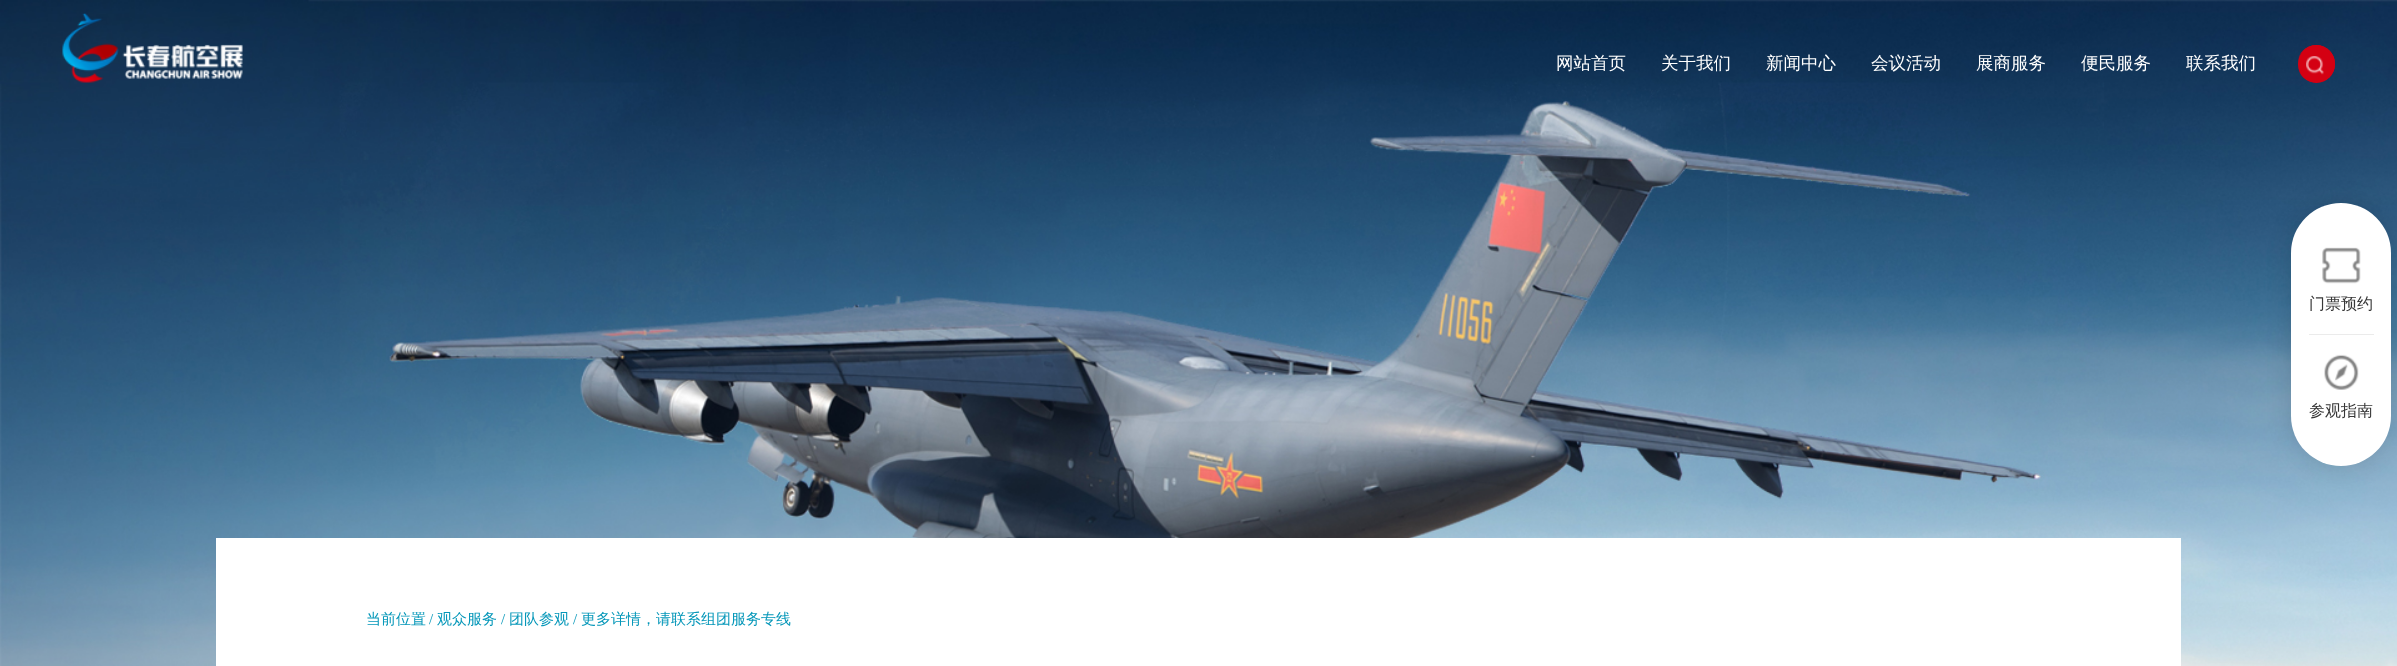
async function draw(canvas) {
	canvas.width = 2397;
	canvas.height = 666;
	const c = canvas.getContext('2d');
	c.miterLimit = 4;
	c.fontKerning = 'normal';
	async function loadImage(src) {
		const img = new Image();
		img.src = src;
		await img.decode();
		return img;
	}

	c.fillStyle = '#fff';
	c.fillRect(0, 0, 2397, 666);
	c.drawImage(await loadImage('img1.png'), 0, 0, 2397, 666);
	c.drawImage(await loadImage('img2.png'), 62, 13, 181, 70);
	c.font = '500 17.5px WenQuanYi Zen Hei';
	for (const [text, x, y] of [
		['网站首页', 1556, 69],
		['关于我们', 1661, 69],
		['新闻中心', 1766, 69],
		['会议活动', 1871, 69],
		['展商服务', 1976, 69],
		['便民服务', 2081, 69],
		['联系我们', 2186, 69],
	]) {
		c.fillText(text, x, y);
	}
	c.fillStyle = '#d40012';
	c.beginPath();
	c.roundRect(2298, 45, 37, 38, 18.5);
	c.fill();
	c.beginPath();
	c.moveTo(2316, 45);
	c.bezierCurveTo(2326.5, 45, 2335, 53.5, 2335, 64);
	c.bezierCurveTo(2335, 74, 2326.5, 82.5, 2316, 82.5);
	c.bezierCurveTo(2306, 82.5, 2297.5, 74, 2297.5, 64);
	c.bezierCurveTo(2297.5, 53.5, 2306, 45, 2316, 45);
	c.closePath();
	c.moveTo(2316, 46);
	c.bezierCurveTo(2326, 46, 2334, 54, 2334, 64);
	c.bezierCurveTo(2334, 73.5, 2326, 81, 2316, 81);
	c.bezierCurveTo(2306, 81, 2297.5, 73.5, 2297.5, 64);
	c.bezierCurveTo(2297.5, 54, 2306, 46, 2316, 46);
	c.closePath();
	c.fill('evenodd');
	c.drawImage(await loadImage('img3.png'), 2306, 56, 18, 19);
	c.fillStyle = '#fff';
	c.fillRect(216, 538, 1965, 128);
	c.font = '500 15px WenQuanYi Zen Hei';
	c.fillStyle = '#0597b9';
	c.fillText('当前位置', 366, 624);
	c.font = '15px Liberation Serif';
	c.fillText('/', 429, 624);
	c.font = '500 15px WenQuanYi Zen Hei';
	c.fillText('观众服务', 437, 624);
	c.font = '15px Liberation Serif';
	c.fillText('/', 501, 624);
	c.font = '500 15px WenQuanYi Zen Hei';
	c.fillText('团队参观', 509, 624);
	c.font = '15px Liberation Serif';
	c.fillText('/', 573, 624);
	c.font = '500 15px WenQuanYi Zen Hei';
	c.fillText('更多详情，请联系组团服务专线', 581, 624);
	c.fillStyle = '#0000001f';
	c.filter = 'blur(12.5px)';
	c.beginPath();
	c.roundRect(2291, 203, 100, 263, 50);
	c.fill();
	c.filter = 'none';
	c.fillStyle = '#fff';
	c.beginPath();
	c.roundRect(2291, 203, 100, 263, 50);
	c.fill();
	c.fillStyle = '#ebebeb';
	c.fillRect(2309, 334, 65, 1);
	c.drawImage(await loadImage('img4.png'), 2322, 247, 39, 37);
	c.font = '500 16px WenQuanYi Zen Hei';
	c.fillStyle = '#373737';
	c.fillText('门票预约', 2309, 309);
	c.drawImage(await loadImage('img5.png'), 2324, 354, 35, 36);
	c.fillText('参观指南', 2309, 416);
}

draw(document.querySelector('canvas'));
